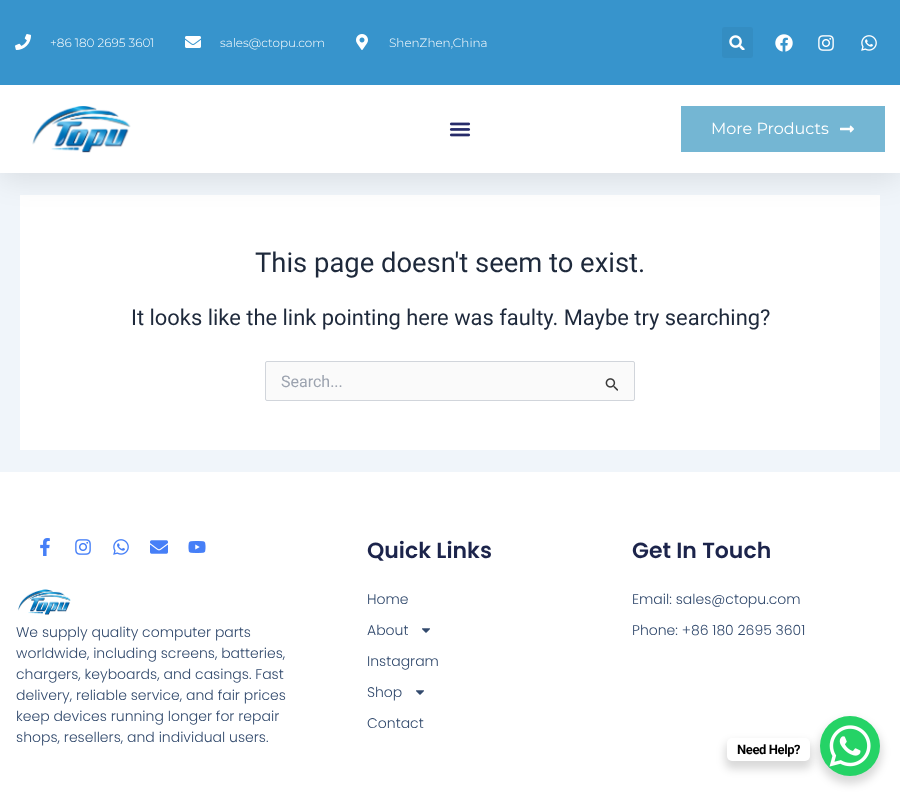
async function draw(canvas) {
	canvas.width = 900;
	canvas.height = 796;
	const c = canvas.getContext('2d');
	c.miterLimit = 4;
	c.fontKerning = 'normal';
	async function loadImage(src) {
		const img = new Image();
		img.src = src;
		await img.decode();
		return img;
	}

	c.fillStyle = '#f0f5fa';
	c.fillRect(0, 0, 900, 796);
	c.fillStyle = '#fff';
	c.fillRect(20, 195, 860, 255);
	c.fillStyle = '#0000001a';
	c.filter = 'blur(15px)';
	c.beginPath();
	c.rect(0, 5, 900, 173);
	c.fill();
	c.filter = 'none';
	c.fillStyle = '#3794cc';
	c.fillRect(0, 0, 900, 85);
	c.drawImage(await loadImage('img1.png'), 15, 34, 16, 16);
	c.font = '300 12px Montserrat';
	c.fillStyle = '#fff';
	c.fillText('+86 180 2695 3601', 50, 47);
	c.drawImage(await loadImage('img2.png'), 185, 36, 16, 12);
	c.fillText('sales@ctopu.com', 220, 47);
	c.drawImage(await loadImage('img3.png'), 356, 34, 12, 16);
	c.fillText('ShenZhen,China', 389, 47);
	c.fillStyle = '#348dc2';
	c.beginPath();
	c.roundRect(722, 27, 31, 31, 3);
	c.fill();
	c.drawImage(await loadImage('img4.png'), 729, 35, 16, 15);
	c.drawImage(await loadImage('img5.png'), 775, 34, 18, 18);
	c.drawImage(await loadImage('img6.png'), 818, 35, 16, 16);
	c.drawImage(await loadImage('img7.png'), 861, 35, 16, 16);
	c.fillStyle = '#fff';
	c.fillRect(0, 85, 900, 88);
	c.drawImage(await loadImage('img8.png'), 32, 106, 99, 47);
	c.drawImage(await loadImage('img9.png'), 449, 122, 22, 15);
	c.fillStyle = '#74b6d3';
	c.fillRect(681, 106, 204, 46);
	c.font = '16px Montserrat';
	c.fillStyle = '#fff';
	c.fillText('More Products', 711, 134);
	c.drawImage(await loadImage('img10.png'), 840, 125, 14, 8);
	c.font = '27.4px Roboto';
	c.fillStyle = '#1e293b';
	c.fillText('This page doesn\'t seem to exist.', 255, 272);
	c.font = '21.9px Roboto';
	c.fillText('It looks like the link pointing here was faulty. Maybe try searching?', 131, 325);
	c.fillStyle = '#fafafa';
	c.beginPath();
	c.roundRect(265.5, 361.5, 369, 39, 1.5);
	c.fill();
	c.strokeStyle = '#d1d5db';
	c.stroke();
	c.font = '16px Roboto';
	c.fillStyle = '#9ca3af';
	c.fillText('Search...', 281, 387);
	c.drawImage(await loadImage('img11.png'), 605, 378, 13, 13);
	c.fillStyle = '#fff';
	c.fillRect(0, 472, 900, 324);
	c.font = '600 22px Poppins';
	c.fillStyle = '#1c244b';
	c.fillText('Quick Links', 367, 558);
	c.font = '300 14px Poppins';
	c.fillStyle = '#324a6d';
	c.fillText('Home', 367, 604);
	c.fillText('About', 367, 635);
	c.drawImage(await loadImage('img12.png'), 422, 628, 8, 5);
	c.fillText('Instagram', 367, 666);
	c.fillText('Shop', 367, 697);
	c.drawImage(await loadImage('img12.png'), 416, 690, 8, 5);
	c.fillText('Contact', 367, 728);
	c.font = '600 22px Poppins';
	c.fillStyle = '#1c244b';
	c.fillText('Get In Touch', 632, 558);
	c.font = '300 14px Poppins';
	c.fillStyle = '#324a6d';
	c.fillText('Email: sales@ctopu.com', 632, 604);
	c.fillText('Phone: +86 180 2695 3601', 632, 635);
	c.drawImage(await loadImage('img13.png'), 40, 538, 10, 18);
	c.drawImage(await loadImage('img14.png'), 75, 539, 16, 16);
	c.drawImage(await loadImage('img15.png'), 113, 539, 16, 16);
	c.drawImage(await loadImage('img16.png'), 150, 540, 18, 14);
	c.drawImage(await loadImage('img17.png'), 188, 541, 18, 12);
	c.drawImage(await loadImage('img18.png'), 18, 589, 53, 26);
	for (const [text, x, y] of [
		['We supply quality computer parts', 16, 637],
		['worldwide, including screens, batteries,', 16, 658],
		['chargers, keyboards, and casings. Fast', 16, 679],
		['delivery, reliable service, and fair prices', 16, 700],
		['keep devices running longer for repair', 16, 721],
		['shops, resellers, and individual users.', 16, 742],
	]) {
		c.fillText(text, x, y);
	}
	c.fillStyle = '#00000026';
	c.filter = 'blur(4px)';
	c.beginPath();
	c.roundRect(818, 720, 64, 64, 32);
	c.fill();
	c.filter = 'none';
	c.fillStyle = '#25d366';
	c.beginPath();
	c.arc(850, 746, 30, 0, 2 * Math.PI);
	c.fill();
	c.fillStyle = '#00000026';
	c.filter = 'blur(4px)';
	c.beginPath();
	c.roundRect(725, 742, 87, 27, 7);
	c.fill();
	c.filter = 'none';
	c.fillStyle = '#fff';
	c.beginPath();
	c.roundRect(727, 738, 83, 23, 5);
	c.fill();
	c.letterSpacing = '-0.4px';
	c.font = 'bold 13px Roboto';
	c.fillStyle = '#000';
	c.fillText('Need Help?', 737, 754);
	c.drawImage(await loadImage('img19.png'), 829, 725, 42, 42);
}

draw(document.querySelector('canvas'));
